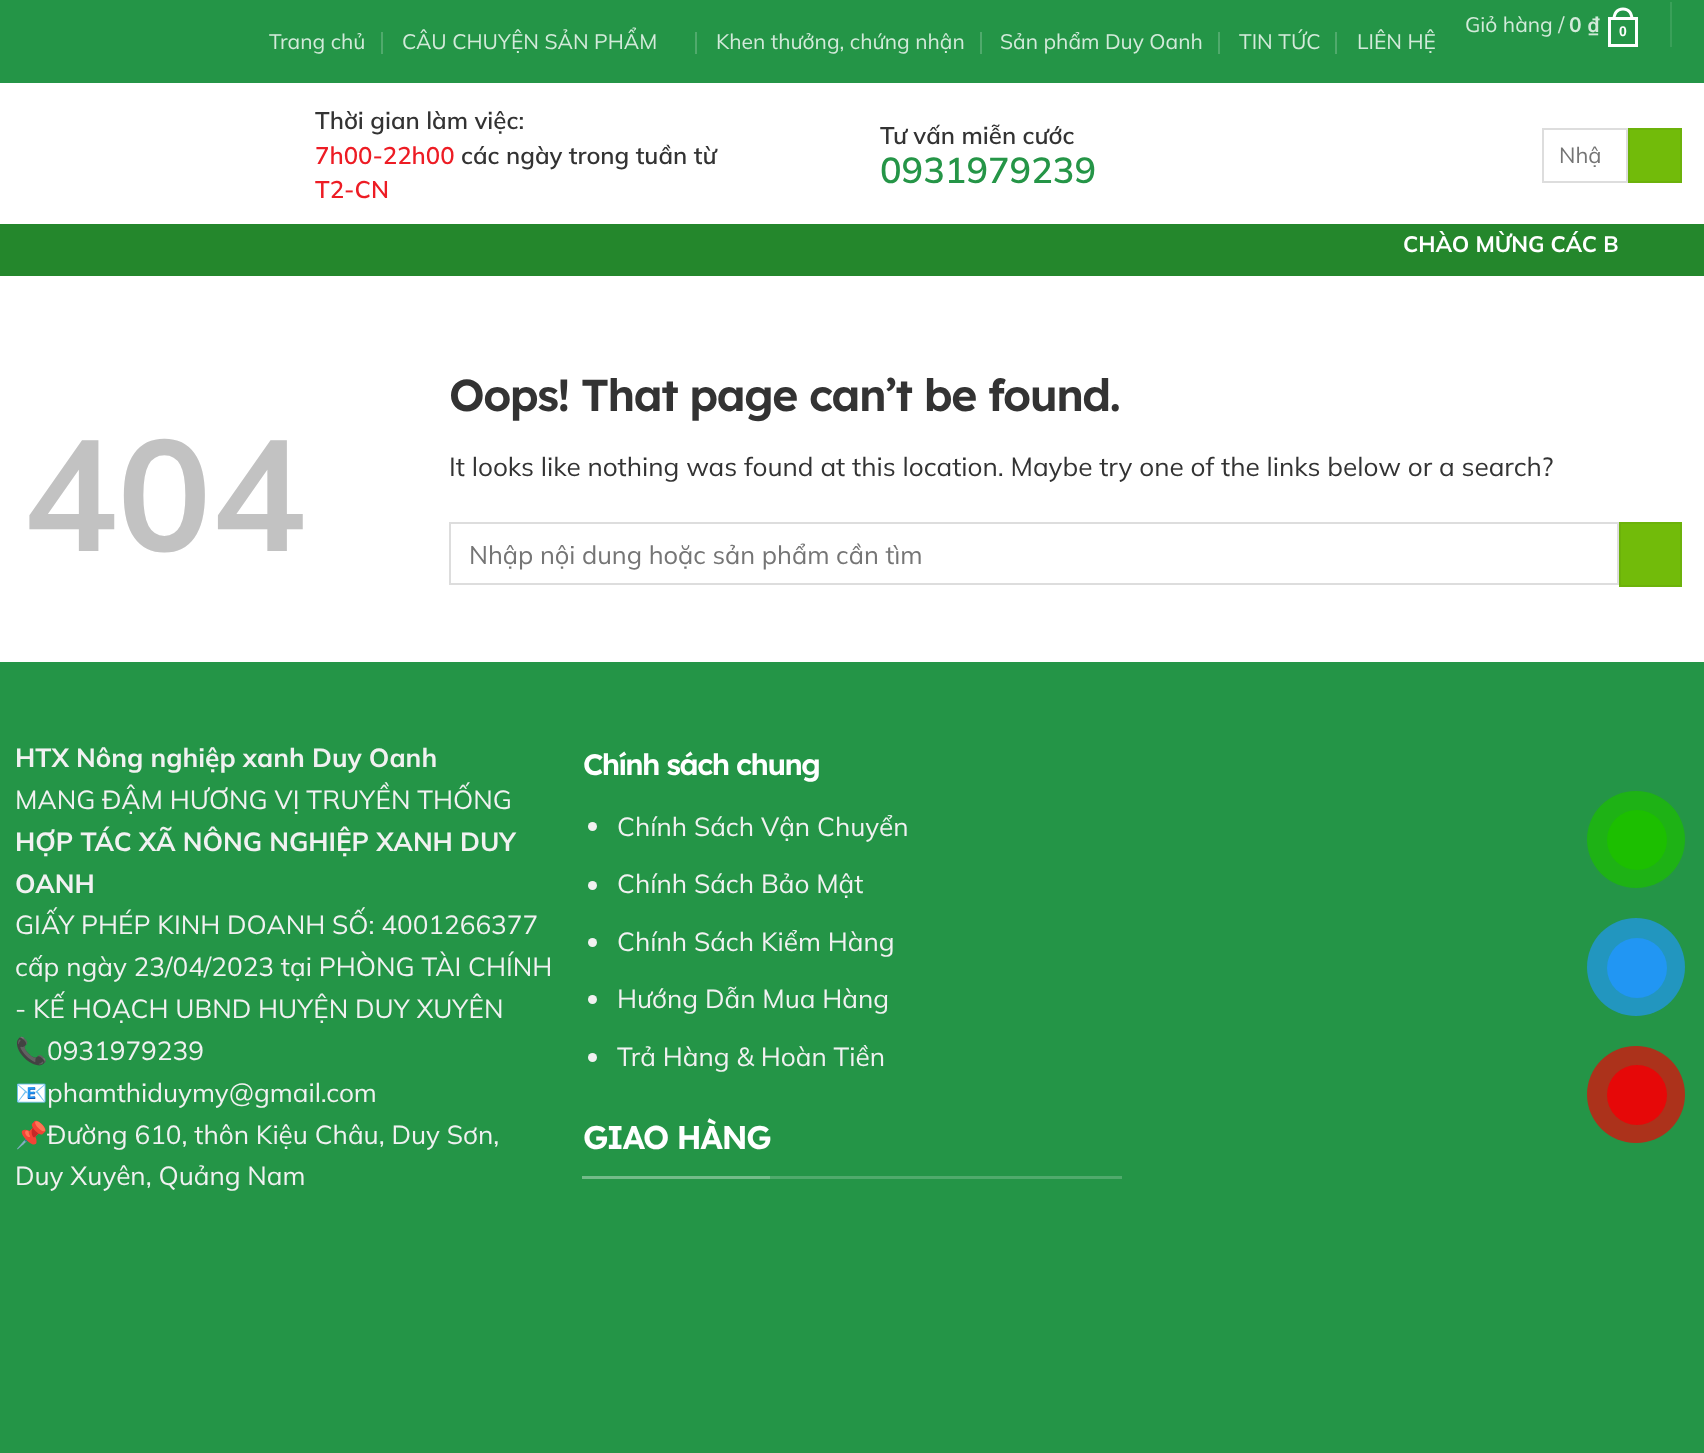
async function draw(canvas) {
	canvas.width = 1704;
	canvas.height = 1453;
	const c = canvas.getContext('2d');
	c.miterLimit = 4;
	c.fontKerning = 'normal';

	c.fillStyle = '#fff';
	c.fillRect(0, 0, 1704, 1453);
	c.fillStyle = '#249547';
	c.fillRect(0, 0, 1704, 83);
	c.font = '21px Mulish';
	c.fillStyle = '#d3eada';
	c.fillText('Trang chủ', 269, 49);
	c.fillStyle = '#50aa6c';
	c.fillRect(381, 32, 2, 22);
	c.fillStyle = '#d3eada';
	c.fillText('CÂU CHUYỆN SẢN PHẨM', 402, 49);
	c.fillStyle = '#50aa6c';
	c.fillRect(695, 32, 2, 22);
	c.fillStyle = '#d3eada';
	c.fillText('Khen thưởng, chứng nhận', 716, 49);
	c.fillStyle = '#50aa6c';
	c.fillRect(980, 32, 2, 22);
	c.fillStyle = '#d3eada';
	c.fillText('Sản phẩm Duy Oanh', 1000, 49);
	c.fillStyle = '#50aa6c';
	c.fillRect(1218, 32, 2, 22);
	c.fillStyle = '#d3eada';
	c.fillText('TIN TỨC', 1239, 49);
	c.fillStyle = '#50aa6c';
	c.fillRect(1335, 32, 2, 22);
	c.fillStyle = '#d3eada';
	c.fillText('LIÊN HỆ', 1357, 49);
	c.fillText('Giỏ hàng /', 1465, 32);
	c.font = 'bold 21px Mulish';
	c.fillText('0 ₫', 1569, 32);
	c.strokeStyle = '#fff';
	c.lineWidth = 3;
	c.strokeRect(1609.5, 18.5, 27, 27);
	c.fillStyle = '#fff';
	c.beginPath();
	c.moveTo(1623, 7.5);
	c.bezierCurveTo(1630, 7.5, 1633.5, 13, 1633.5, 19.5);
	c.lineTo(1612.5, 19.5);
	c.bezierCurveTo(1612.5, 13, 1616, 7.5, 1623, 7.5);
	c.closePath();
	c.moveTo(1623, 10.5);
	c.bezierCurveTo(1628.5, 10.5, 1630.5, 15, 1630.5, 19.5);
	c.lineTo(1615.5, 19.5);
	c.bezierCurveTo(1615.5, 15, 1617.5, 10.5, 1623, 10.5);
	c.closePath();
	c.fill('evenodd');
	c.font = 'bold 14px Liberation Sans';
	c.fillText('0', 1619, 36);
	c.fillStyle = '#3aa059';
	c.fillRect(1670, 2, 2, 45);
	c.font = '600 24px Mulish';
	c.fillStyle = '#333';
	c.fillText('Thời gian làm việc:', 315, 129);
	c.fillStyle = '#ed1c24';
	c.fillText('7h00-22h00', 315, 164);
	c.fillStyle = '#333';
	c.fillText('các ngày trong tuần từ', 461, 164);
	c.fillStyle = '#ed1c24';
	c.fillText('T2-CN', 315, 198);
	c.fillStyle = '#333';
	c.fillText('Tư vấn miễn cước', 880, 144);
	c.font = '600 36px Mulish';
	c.fillStyle = '#259547';
	c.fillText('0931979239', 880, 183);
	c.strokeStyle = '#ddd';
	c.lineWidth = 2;
	c.strokeRect(1543, 129, 84, 53);
	c.font = '22px Mulish';
	c.fillStyle = '#757575';
	c.fillText('Nhậ', 1559, 163);
	c.fillStyle = '#72bb0a';
	c.beginPath();
	c.rect(1629, 129, 52, 53);
	c.fill();
	c.strokeStyle = '#6cb20a';
	c.stroke();
	c.fillStyle = '#24872c';
	c.fillRect(0, 224, 1704, 52);
	c.font = 'bold 22.25px Mulish';
	c.fillStyle = '#fff';
	c.fillText('CHÀO MỪNG CÁC B', 1403, 252);
	c.font = 'bold 157px Mulish';
	c.fillStyle = '#c2c2c2';
	c.fillText('404', 23, 551);
	c.letterSpacing = '-1.5px';
	c.font = '600 44.5px Lexend Deca';
	c.fillStyle = '#333';
	c.fillText('Oops! That page can’t be found.', 449, 411);
	c.letterSpacing = '0px';
	c.font = '26.15px Mulish';
	c.fillText('It looks like nothing was found at this location. Maybe try one of the links below or a search?', 449, 476);
	c.strokeStyle = '#ddd';
	c.strokeRect(450, 523, 1168, 61);
	c.font = '25.4px Mulish';
	c.fillStyle = '#757575';
	c.fillText('Nhập nội dung hoặc sản phẩm cần tìm', 469, 564);
	c.fillStyle = '#72bb0a';
	c.beginPath();
	c.rect(1620, 523, 61, 63);
	c.fill();
	c.strokeStyle = '#6cb20a';
	c.stroke();
	c.fillStyle = '#249547';
	c.fillRect(0, 662, 1704, 791);
	c.font = 'bold 26.15px Mulish';
	c.fillStyle = '#f1f1f1';
	c.fillText('HTX Nông nghiệp xanh Duy Oanh', 15, 767);
	c.font = '26.15px Mulish';
	c.fillText('MANG ĐẬM HƯƠNG VỊ TRUYỀN THỐNG', 15, 809);
	c.font = 'bold 26.15px Mulish';
	c.fillText('HỢP TÁC XÃ NÔNG NGHIỆP XANH DUY', 15, 851);
	c.fillText('OANH', 15, 893);
	c.font = '26.15px Mulish';
	for (const [text, x, y] of [
		['GIẤY PHÉP KINH DOANH SỐ: 4001266377', 15, 934],
		['cấp ngày 23/04/2023 tại PHÒNG TÀI CHÍNH', 15, 976],
		['- KẾ HOẠCH UBND HUYỆN DUY XUYÊN', 15, 1018],
	]) {
		c.fillText(text, x, y);
	}
	c.font = '26.15px Noto Color Emoji';
	c.fillText('📞', 15, 1060);
	c.font = '26.15px Mulish';
	c.fillText('0931979239', 47, 1060);
	c.font = '26.15px Noto Color Emoji';
	c.fillText('📧', 15, 1102);
	c.font = '26.15px Mulish';
	c.fillText('phamthiduymy@gmail.com', 47, 1102);
	c.font = '26.15px Noto Color Emoji';
	c.fillText('📌', 15, 1144);
	c.font = '26.15px Mulish';
	c.fillText('Đường 610, thôn Kiệu Châu, Duy Sơn,', 47, 1144);
	c.fillText('Duy Xuyên, Quảng Nam', 15, 1185);
	c.letterSpacing = '-1.5px';
	c.font = '600 29.5px Lexend Deca';
	c.fillStyle = '#fff';
	c.fillText('Chính sách chung', 583, 775);
	c.fillStyle = '#f1f1f1';
	c.beginPath();
	c.arc(592.5, 826.5, 4.5, 0, 2 * Math.PI);
	c.fill();
	c.letterSpacing = '0px';
	c.font = '26.15px Mulish';
	c.fillText('Chính Sách Vận Chuyển', 617, 836);
	c.beginPath();
	c.arc(592.5, 885.5, 4.5, 0, 2 * Math.PI);
	c.fill();
	c.fillText('Chính Sách Bảo Mật', 617, 893);
	c.beginPath();
	c.arc(592.5, 942.5, 4.5, 0, 2 * Math.PI);
	c.fill();
	c.fillText('Chính Sách Kiểm Hàng', 617, 951);
	c.beginPath();
	c.arc(592.5, 999.5, 4.5, 0, 2 * Math.PI);
	c.fill();
	c.fillText('Hướng Dẫn Mua Hàng', 617, 1008);
	c.beginPath();
	c.arc(592.5, 1057.5, 4.5, 0, 2 * Math.PI);
	c.fill();
	c.fillText('Trả Hàng & Hoàn Tiền', 617, 1066);
	c.fillStyle = '#50aa6c';
	c.fillRect(770, 1176, 352, 3);
	c.fillStyle = '#73bb89';
	c.fillRect(582, 1176, 188, 3);
	c.letterSpacing = '-1.5px';
	c.font = '600 32.75px Lexend Deca';
	c.fillStyle = '#fff';
	c.fillText('GIAO HÀNG', 583, 1149);
	c.fillStyle = '#1eb215';
	c.beginPath();
	c.roundRect(1587, 791, 98, 97, 48.5);
	c.fill();
	c.fillStyle = '#1cbf00';
	c.beginPath();
	c.arc(1637, 840, 30, 0, 2 * Math.PI);
	c.fill();
	c.fillStyle = '#2296bf';
	c.beginPath();
	c.arc(1636, 967, 49, 0, 2 * Math.PI);
	c.fill();
	c.fillStyle = '#2196f3';
	c.beginPath();
	c.arc(1637, 968, 30, 0, 2 * Math.PI);
	c.fill();
	c.fillStyle = '#ac321b';
	c.beginPath();
	c.roundRect(1587, 1046, 98, 97, 48.5);
	c.fill();
	c.fillStyle = '#e60808';
	c.beginPath();
	c.arc(1637, 1095, 30, 0, 2 * Math.PI);
	c.fill();
}

draw(document.querySelector('canvas'));
